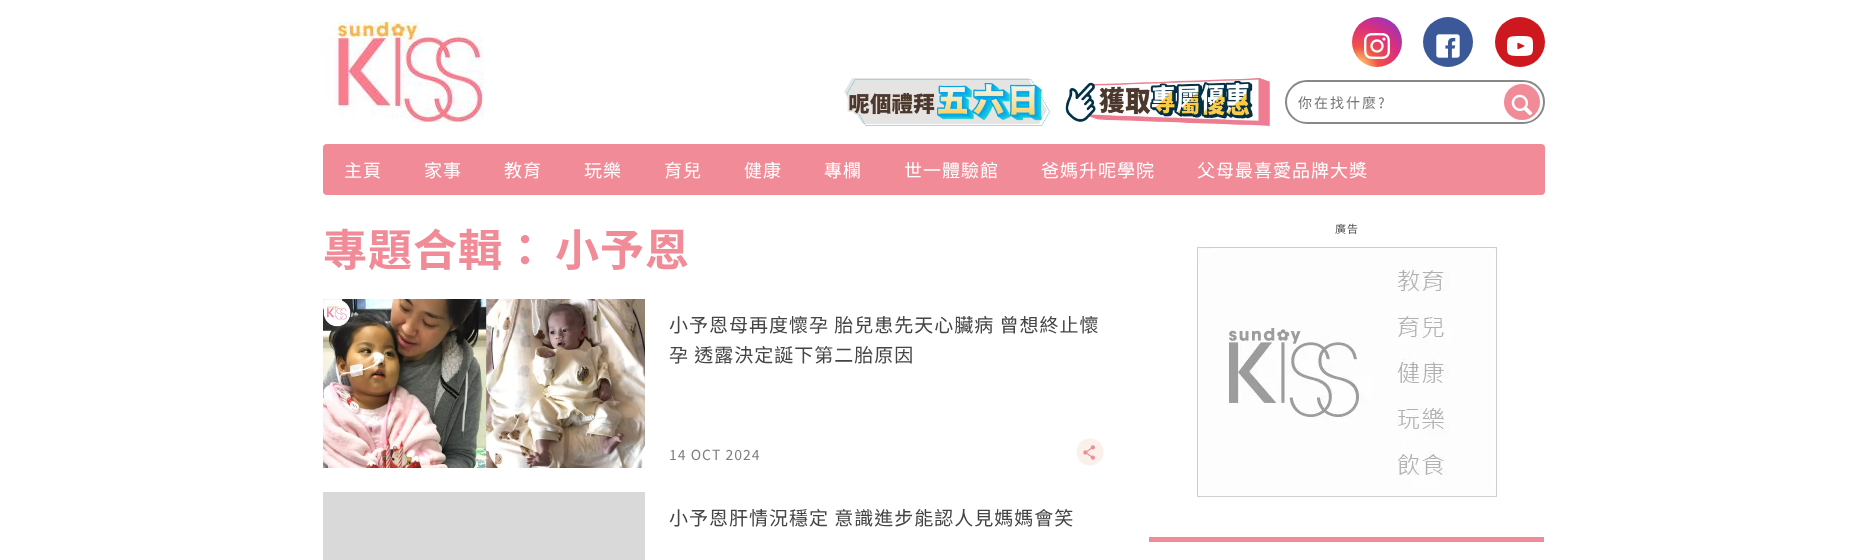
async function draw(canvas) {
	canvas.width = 1867;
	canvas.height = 560;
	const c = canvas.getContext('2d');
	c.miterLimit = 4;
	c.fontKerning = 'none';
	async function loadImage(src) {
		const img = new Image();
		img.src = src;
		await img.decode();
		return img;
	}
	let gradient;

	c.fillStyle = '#fff';
	c.fillRect(0, 0, 1867, 560);
	c.drawImage(await loadImage('img1.png'), 323, 22, 161, 100);
	gradient = c.createRadialGradient(1358, 67, 0, 1358, 67, 67);
	gradient.addColorStop(0.04, '#fed373');
	gradient.addColorStop(0.3, '#f15245');
	gradient.addColorStop(0.62, '#d92e7f');
	gradient.addColorStop(0.85, '#9b36b7');
	gradient.addColorStop(1, '#515ecf');
	c.fillStyle = gradient;
	c.beginPath();
	c.arc(1377, 42, 25, 0, 2 * Math.PI);
	c.fill();
	c.drawImage(await loadImage('img2.png'), 1364, 33, 26, 26);
	c.fillStyle = '#3b5998';
	c.beginPath();
	c.arc(1448, 42, 25, 0, 2 * Math.PI);
	c.fill();
	c.drawImage(await loadImage('img3.png'), 1436, 34, 24, 24);
	c.fillStyle = '#cc181e';
	c.beginPath();
	c.arc(1520, 42, 25, 0, 2 * Math.PI);
	c.fill();
	c.drawImage(await loadImage('img4.png'), 1507, 36, 26, 20);
	c.drawImage(await loadImage('img5.png'), 844, 78, 206, 48);
	c.drawImage(await loadImage('img6.png'), 1065, 78, 205, 48);
	c.beginPath();
	c.roundRect(1286, 81, 258, 42, 21);
	c.strokeStyle = '#888';
	c.lineWidth = 2;
	c.stroke();
	c.letterSpacing = '2px';
	c.font = '14px Noto Sans TC';
	c.fillStyle = '#757575';
	c.fillText('你在找什麼?', 1298, 108);
	c.fillStyle = '#f08b97';
	c.beginPath();
	c.arc(1522, 102, 18, 0, 2 * Math.PI);
	c.fill();
	c.drawImage(await loadImage('img7.png'), 1511, 94, 22, 22);
	c.beginPath();
	c.roundRect(323, 144, 1222, 51, 4);
	c.fill();
	c.letterSpacing = '1px';
	c.font = '18px Noto Sans TC';
	c.fillStyle = '#fff';
	for (const [text, x, y] of [
		['主頁', 344, 177],
		['家事', 424, 177],
		['教育', 504, 177],
		['玩樂', 584, 177],
		['育兒', 664, 177],
		['健康', 744, 177],
		['專欄', 824, 177],
		['世一體驗館', 904, 177],
		['爸媽升呢學院', 1041, 177],
		['父母最喜愛品牌大獎', 1197, 177],
	]) {
		c.fillText(text, x, y);
	}
	c.font = 'bold 44px Noto Sans TC';
	c.fillStyle = '#f08b97';
	c.fillText('專題合輯：', 323, 266);
	c.fillText('小予恩', 555, 266);
	c.drawImage(await loadImage('img8.png'), 323, 299, 322, 169);
	c.font = '19px Noto Sans TC';
	c.fillStyle = '#444';
	c.fillText('小予恩母再度懷孕 胎兒患先天心臟病 曾想終止懷', 669, 332);
	c.fillText('孕 透露決定誕下第二胎原因', 669, 362);
	c.font = '14px Noto Sans TC';
	c.fillStyle = '#807f7e';
	c.fillText('14 OCT 2024', 669, 460);
	c.drawImage(await loadImage('img9.png'), 1076, 438, 28, 28);
	c.fillStyle = '#d9d9d9';
	c.fillRect(323, 492, 322, 68);
	c.font = '19px Noto Sans TC';
	c.fillStyle = '#444';
	c.fillText('小予恩肝情況穩定 意識進步能認人見媽媽會笑', 669, 525);
	c.font = '11px Noto Sans TC';
	c.fillStyle = '#505050';
	c.fillText('廣告', 1335, 233);
	c.drawImage(await loadImage('img10.png'), 1197, 247, 300, 250);
	c.fillStyle = '#f08b97';
	c.fillRect(1149, 537, 395, 5);
}

draw(document.querySelector('canvas'));
